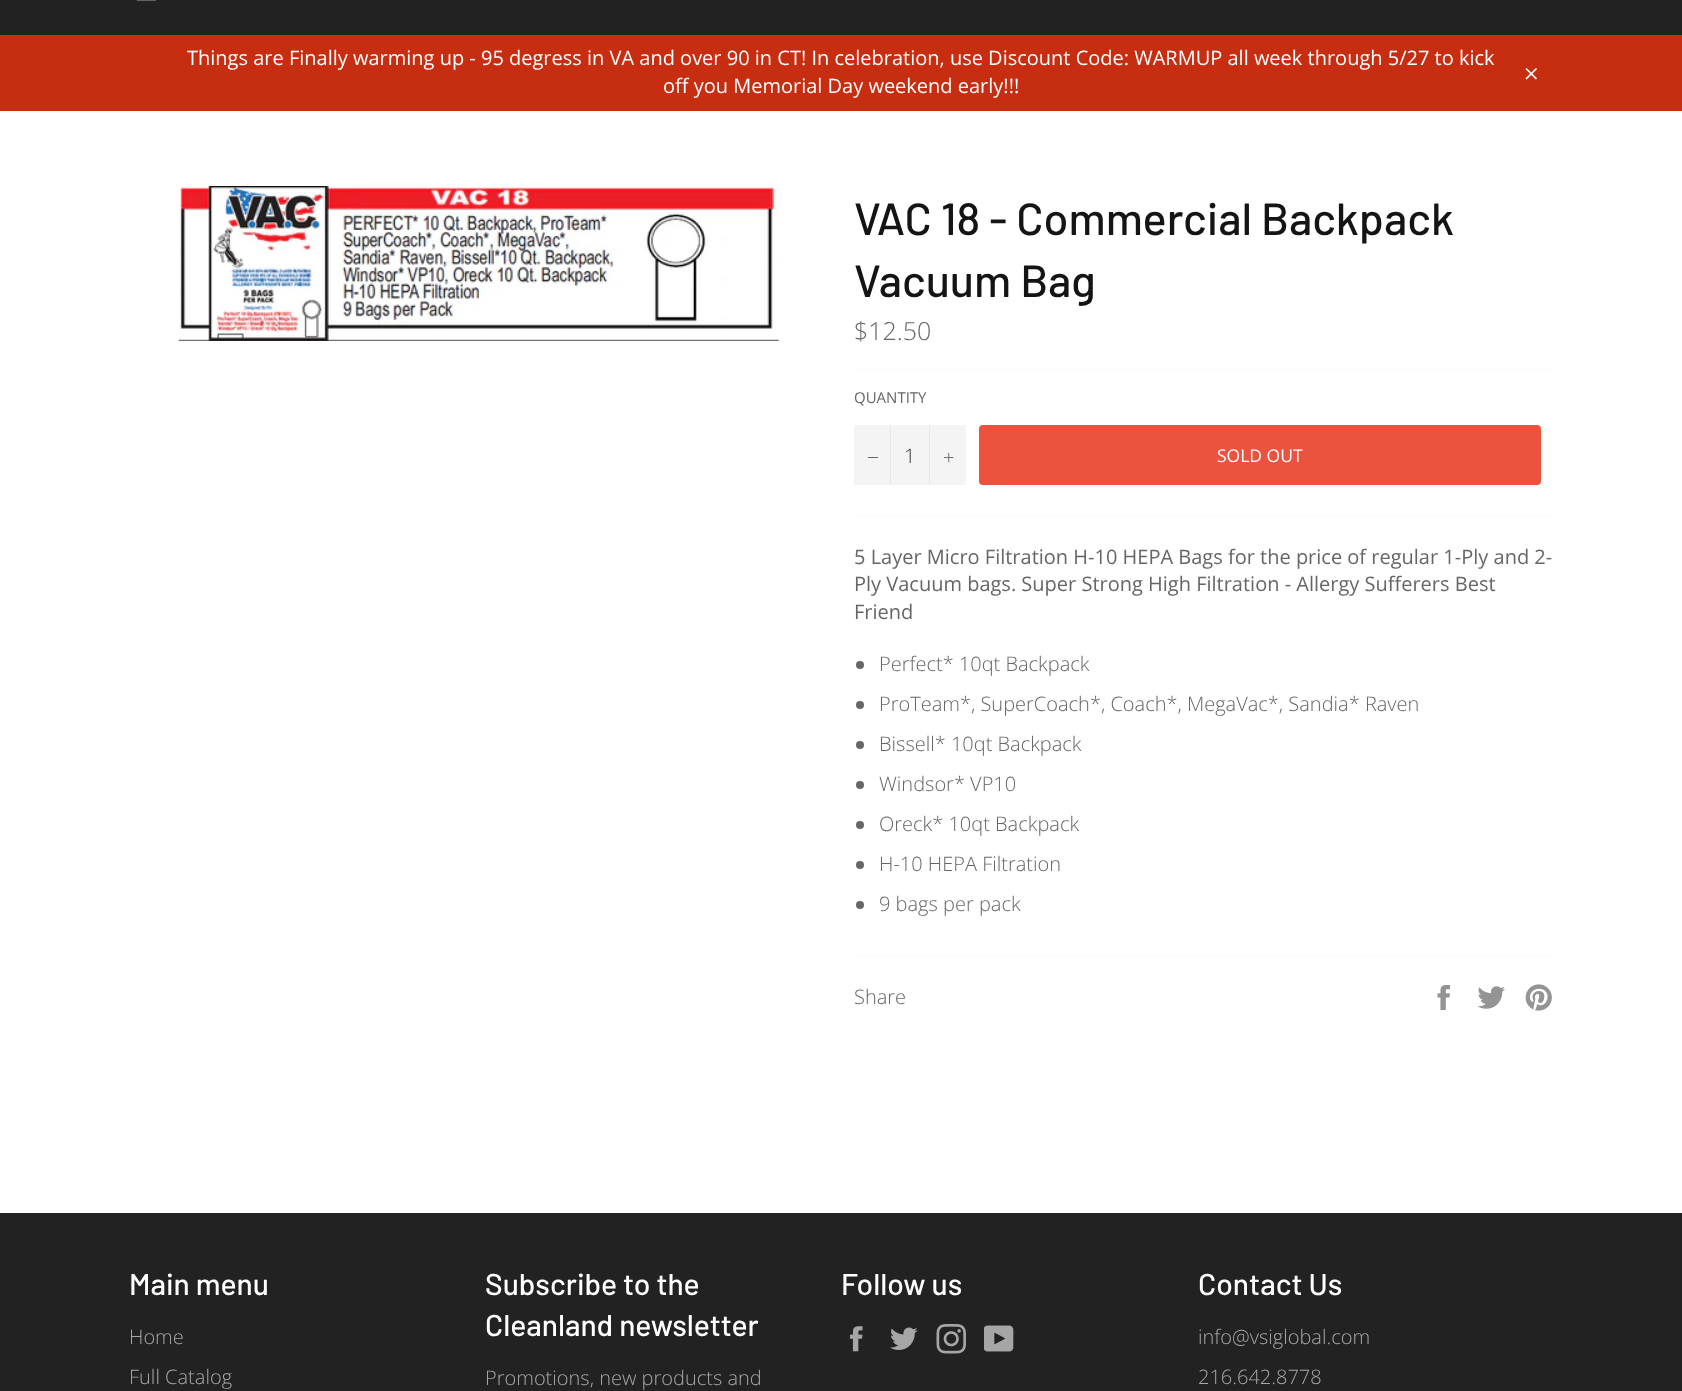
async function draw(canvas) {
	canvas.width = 1682;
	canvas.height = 1391;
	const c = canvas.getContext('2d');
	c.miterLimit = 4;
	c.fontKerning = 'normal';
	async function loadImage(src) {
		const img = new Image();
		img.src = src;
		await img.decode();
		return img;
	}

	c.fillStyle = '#c72d11';
	c.fillRect(0, 0, 1682, 1391);
	c.fillStyle = '#222';
	c.fillRect(0, 0, 1682, 35);
	c.drawImage(await loadImage('img1.png'), 136, 0, 20, 1);
	c.font = '20px Open Sans';
	c.fillStyle = '#fff';
	c.fillText('Things are Finally warming up - 95 degress in VA and over 90 in CT! In celebration, use Discount Code: WARMUP all week through 5/27 to kick', 187, 65);
	c.fillText('off you Memorial Day weekend early!!!', 663, 93);
	c.drawImage(await loadImage('img2.png'), 1525, 68, 12, 12);
	c.fillRect(0, 111, 1682, 1102);
	c.drawImage(await loadImage('img3.png'), 178, 186, 601, 155);
	c.font = '500 45px Barlow';
	c.fillStyle = '#141414';
	c.fillText('VAC 18 - Commercial Backpack', 854, 235);
	c.fillText('Vacuum Bag', 854, 297);
	c.font = '300 25px Open Sans';
	c.fillStyle = '#666';
	c.fillText('$12.50', 854, 340);
	c.fillStyle = '#fafafa';
	c.fillRect(854, 369, 700, 1);
	c.font = '15px Open Sans';
	c.fillStyle = '#666';
	c.fillText('QUANTITY', 854, 403);
	for (const [x, y, w, h, color] of [
		[854, 425, 112, 60, '#f4f4f4'],
		[890, 425, 1, 60, '#e7e7e7'],
		[868, 457, 10, 1, '#666'],
	]) {
		c.fillStyle = color;
		c.fillRect(x, y, w, h);
	}
	c.font = '300 20px Open Sans';
	c.fillStyle = '#333';
	c.fillText('1', 904, 463);
	c.fillStyle = '#e7e7e7';
	c.fillRect(929, 425, 1, 60);
	c.drawImage(await loadImage('img4.png'), 944, 453, 10, 10);
	c.fillStyle = '#ec523e';
	c.beginPath();
	c.roundRect(979, 425, 562, 60, 4);
	c.fill();
	c.font = '17.5px Open Sans';
	c.fillStyle = '#fff';
	c.fillText('SOLD OUT', 1217, 462);
	c.fillStyle = '#fafafa';
	c.fillRect(854, 516, 700, 1);
	c.font = '20px Open Sans';
	c.fillStyle = '#666';
	for (const [text, x, y] of [
		['5 Layer Micro Filtration H-10 HEPA Bags for the price of regular 1-Ply and 2-', 854, 564],
		['Ply Vacuum bags. Super Strong High Filtration - Allergy Sufferers Best', 854, 591],
		['Friend', 854, 619],
	]) {
		c.fillText(text, x, y);
	}
	c.beginPath();
	c.arc(860, 665, 4, 0, 2 * Math.PI);
	c.fill();
	c.font = '300 20px Open Sans';
	c.fillText('Perfect* 10qt Backpack', 879, 671);
	c.beginPath();
	c.arc(860, 705, 4, 0, 2 * Math.PI);
	c.fill();
	c.fillText('ProTeam*, SuperCoach*, Coach*, MegaVac*, Sandia* Raven', 879, 711);
	c.beginPath();
	c.arc(860, 745, 4, 0, 2 * Math.PI);
	c.fill();
	c.fillText('Bissell* 10qt Backpack', 879, 751);
	c.beginPath();
	c.arc(860, 785, 4, 0, 2 * Math.PI);
	c.fill();
	c.fillText('Windsor* VP10', 879, 791);
	c.beginPath();
	c.arc(860, 825, 4, 0, 2 * Math.PI);
	c.fill();
	c.fillText('Oreck* 10qt Backpack', 879, 831);
	c.beginPath();
	c.arc(860, 865, 4, 0, 2 * Math.PI);
	c.fill();
	c.fillText('H-10 HEPA Filtration', 879, 871);
	c.beginPath();
	c.arc(860, 905, 4, 0, 2 * Math.PI);
	c.fill();
	c.fillText('9 bags per pack', 879, 911);
	c.fillStyle = '#fafafa';
	c.fillRect(854, 955, 700, 1);
	c.fillStyle = '#666';
	c.fillText('Share', 854, 1004);
	c.drawImage(await loadImage('img5.png'), 1437, 985, 13, 25);
	c.drawImage(await loadImage('img6.png'), 1477, 986, 28, 23);
	c.drawImage(await loadImage('img7.png'), 1525, 984, 27, 27);
	c.fillStyle = '#222';
	c.fillRect(0, 1213, 1682, 178);
	c.font = '500 30px Barlow';
	c.fillStyle = '#fff';
	c.fillText('Main menu', 129, 1295);
	c.font = '300 20px Open Sans';
	c.fillStyle = '#a7a7a7';
	c.fillText('Home', 129, 1344);
	c.fillText('Full Catalog', 129, 1384);
	c.font = '500 30px Barlow';
	c.fillStyle = '#fff';
	c.fillText('Subscribe to the', 485, 1295);
	c.fillText('Cleanland newsletter', 485, 1336);
	c.font = '300 20px Open Sans';
	c.fillStyle = '#a7a7a7';
	c.fillText('Promotions, new products and', 485, 1385);
	c.font = '500 30px Barlow';
	c.fillStyle = '#fff';
	c.fillText('Follow us', 841, 1295);
	c.drawImage(await loadImage('img8.png'), 850, 1326, 13, 26);
	c.drawImage(await loadImage('img9.png'), 890, 1327, 28, 23);
	c.drawImage(await loadImage('img10.png'), 936, 1324, 30, 30);
	c.drawImage(await loadImage('img11.png'), 984, 1325, 30, 27);
	c.fillText('Contact Us', 1198, 1295);
	c.font = '300 20px Open Sans';
	c.fillStyle = '#a7a7a7';
	c.fillText('info@vsiglobal.com', 1198, 1344);
	c.fillText('216.642.8778', 1198, 1384);
}

draw(document.querySelector('canvas'));
